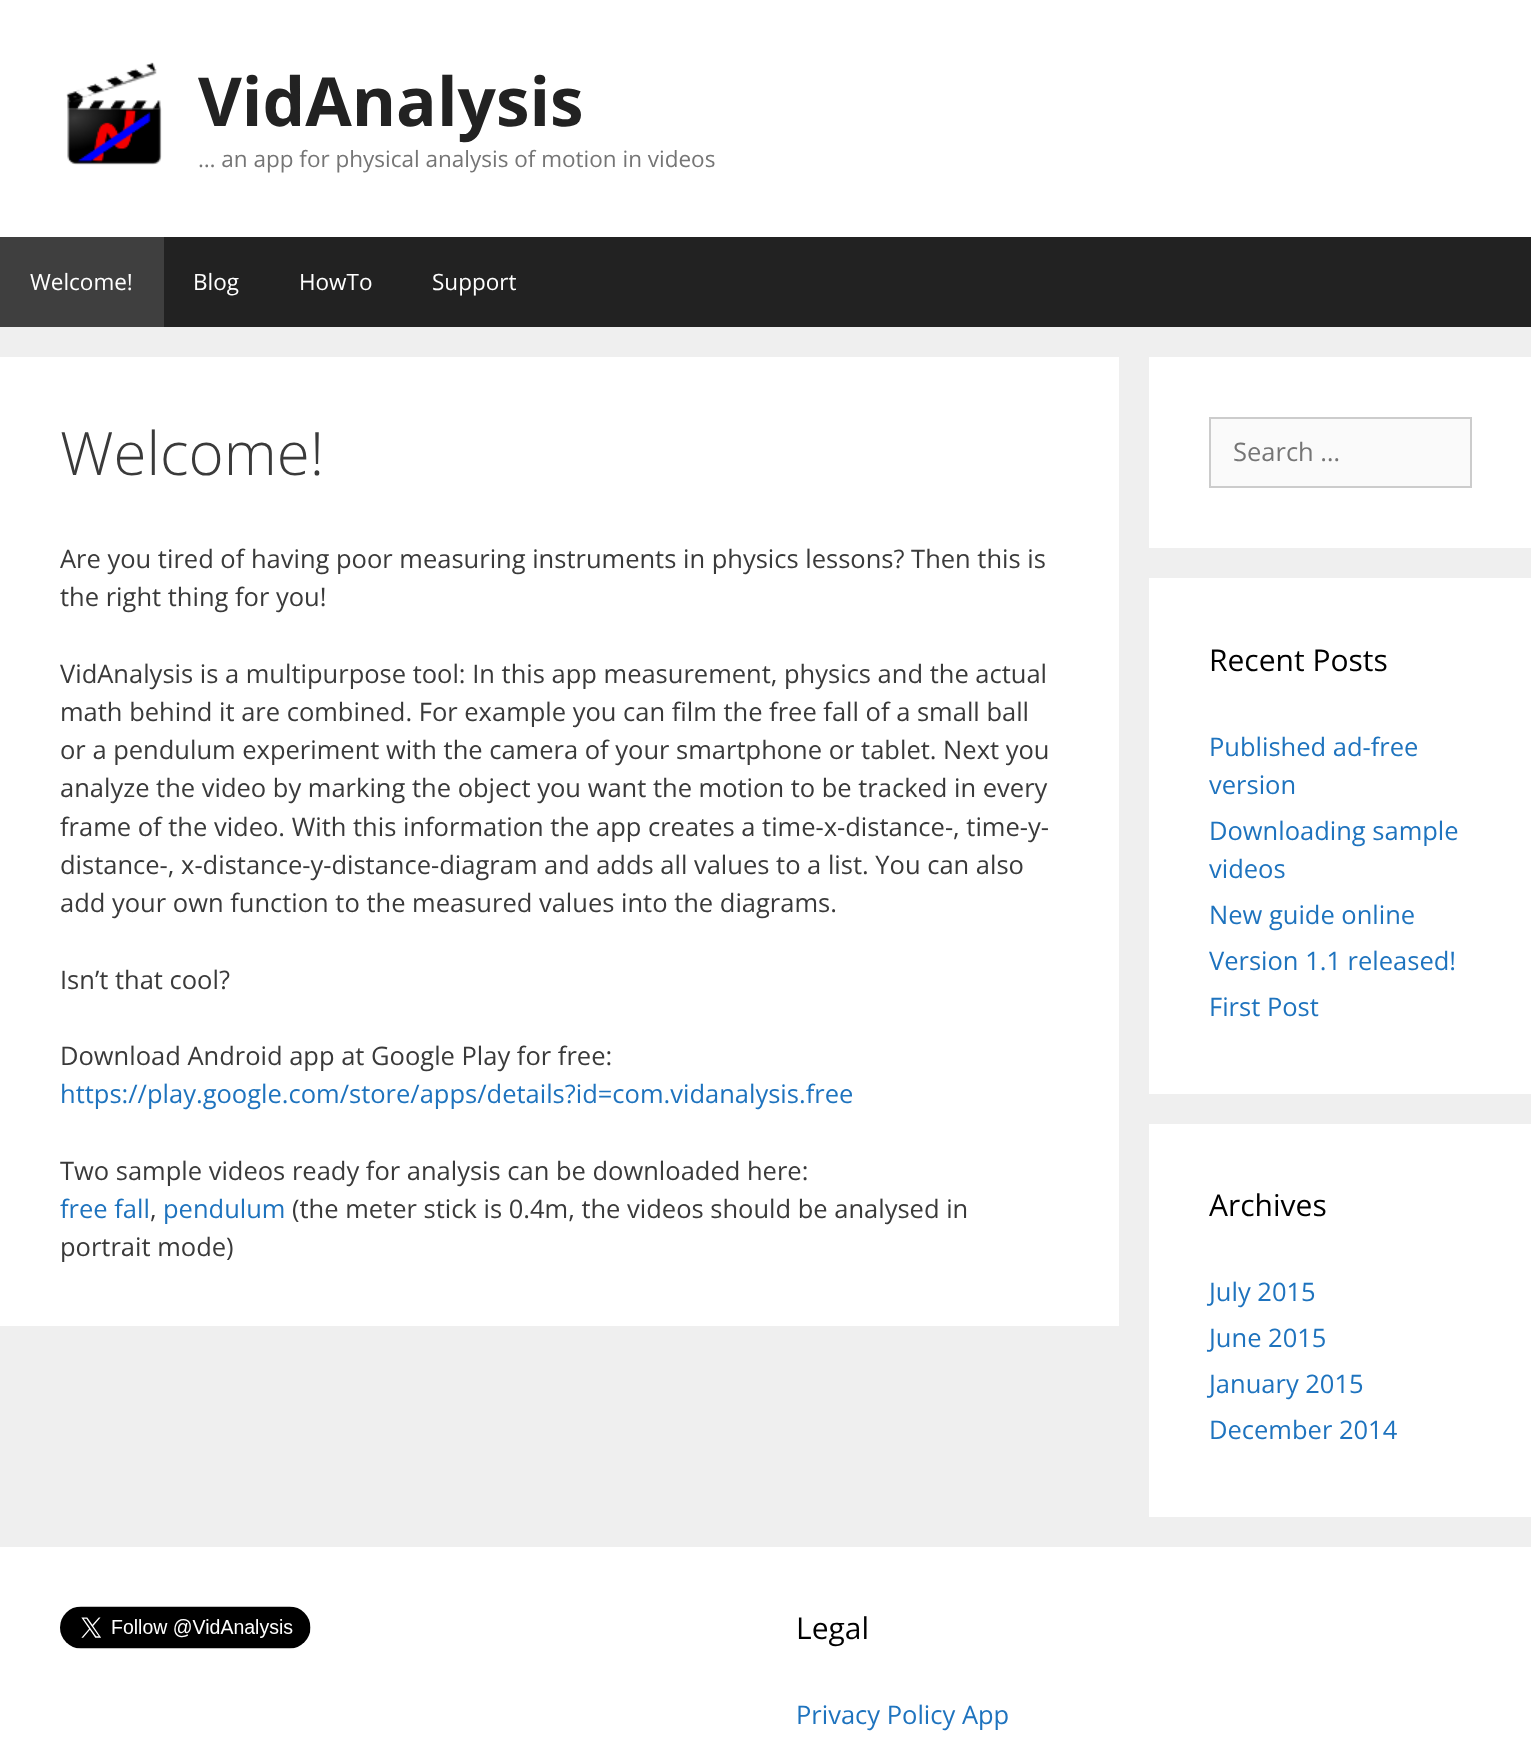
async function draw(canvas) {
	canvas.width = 1531;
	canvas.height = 1746;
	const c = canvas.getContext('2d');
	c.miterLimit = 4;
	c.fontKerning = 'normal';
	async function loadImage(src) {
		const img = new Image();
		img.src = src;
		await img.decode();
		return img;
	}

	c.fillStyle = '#efefef';
	c.fillRect(0, 0, 1531, 1746);
	c.fillStyle = '#fff';
	c.fillRect(0, 0, 1531, 237);
	c.drawImage(await loadImage('img1.png'), 66, 62, 96, 103);
	c.font = 'bold 67.5px Open Sans';
	c.fillStyle = '#222';
	c.fillText('VidAnalysis', 198, 126);
	c.font = '22.5px Open Sans';
	c.fillStyle = '#757575';
	c.fillText('… an app for physical analysis of motion in videos', 198, 167);
	c.fillStyle = '#222';
	c.fillRect(164, 237, 1367, 90);
	c.fillStyle = '#3f3f3f';
	c.fillRect(0, 237, 164, 90);
	c.fillStyle = '#fff';
	for (const [text, x, y] of [
		['Welcome!', 30, 290],
		['Blog', 193, 290],
		['HowTo', 299, 290],
		['Support', 432, 290],
	]) {
		c.fillText(text, x, y);
	}
	c.fillRect(0, 357, 1119, 969);
	c.font = '300 60px Open Sans';
	c.fillStyle = '#3a3a3a';
	c.fillText('Welcome!', 60, 475);
	c.font = '25.5px Open Sans';
	for (const [text, x, y] of [
		['Are you tired of having poor measuring instruments in physics lessons? Then this is', 60, 568],
		['the right thing for you!', 60, 606],
		['VidAnalysis is a multipurpose tool: In this app measurement, physics and the actual', 60, 683],
		['math behind it are combined. For example you can film the free fall of a small ball', 60, 721],
		['or a pendulum experiment with the camera of your smartphone or tablet. Next you', 60, 759],
		['analyze the video by marking the object you want the motion to be tracked in every', 60, 797],
		['frame of the video. With this information the app creates a time-x-distance-, time-y-', 60, 836],
		['distance-, x-distance-y-distance-diagram and adds all values to a list. You can also', 60, 874],
		['add your own function to the measured values into the diagrams.', 60, 912],
		['Isn’t that cool?', 60, 989],
		['Download Android app at Google Play for free:', 60, 1065],
	]) {
		c.fillText(text, x, y);
	}
	c.fillStyle = '#1e73be';
	c.fillText('https://play.google.com/store/apps/details?id=com.vidanalysis.free', 60, 1103);
	c.fillStyle = '#3a3a3a';
	c.fillText('Two sample videos ready for analysis can be downloaded here:', 60, 1180);
	c.fillStyle = '#1e73be';
	c.fillText('free fall', 60, 1218);
	c.fillStyle = '#3a3a3a';
	c.fillText(',', 150, 1218);
	c.fillStyle = '#1e73be';
	c.fillText('pendulum', 163, 1218);
	c.fillStyle = '#3a3a3a';
	c.fillText('(the meter stick is 0.4m, the videos should be analysed in', 292, 1218);
	c.fillText('portrait mode)', 60, 1256);
	c.fillStyle = '#fff';
	c.fillRect(1149, 357, 382, 191);
	c.fillStyle = '#fafafa';
	c.beginPath();
	c.rect(1210, 418, 261, 69);
	c.fill();
	c.strokeStyle = '#ccc';
	c.lineWidth = 2;
	c.stroke();
	c.fillStyle = '#757575';
	c.fillText('Search …', 1233, 461);
	c.fillStyle = '#fff';
	c.fillRect(1149, 578, 382, 516);
	c.font = '30px Open Sans';
	c.fillStyle = '#000';
	c.fillText('Recent Posts', 1209, 671);
	c.font = '25.5px Open Sans';
	c.fillStyle = '#1e73be';
	for (const [text, x, y] of [
		['Published ad-free', 1209, 756],
		['version', 1209, 794],
		['Downloading sample', 1209, 840],
		['videos', 1209, 878],
		['New guide online', 1209, 924],
		['Version 1.1 released!', 1209, 970],
		['First Post', 1209, 1016],
	]) {
		c.fillText(text, x, y);
	}
	c.fillStyle = '#fff';
	c.fillRect(1149, 1124, 382, 393);
	c.font = '30px Open Sans';
	c.fillStyle = '#000';
	c.fillText('Archives', 1209, 1216);
	c.font = '25.5px Open Sans';
	c.fillStyle = '#1e73be';
	for (const [text, x, y] of [
		['July 2015', 1209, 1301],
		['June 2015', 1209, 1347],
		['January 2015', 1209, 1393],
		['December 2014', 1209, 1439],
	]) {
		c.fillText(text, x, y);
	}
	c.fillStyle = '#fff';
	c.fillRect(0, 1547, 1531, 199);
	c.drawImage(await loadImage('img2.png'), 60, 1606, 251, 43);
	c.font = '30px Open Sans';
	c.fillStyle = '#000';
	c.fillText('Legal', 796, 1639);
	c.font = '25.5px Open Sans';
	c.fillStyle = '#1e73be';
	c.fillText('Privacy Policy App', 796, 1724);
}

draw(document.querySelector('canvas'));
